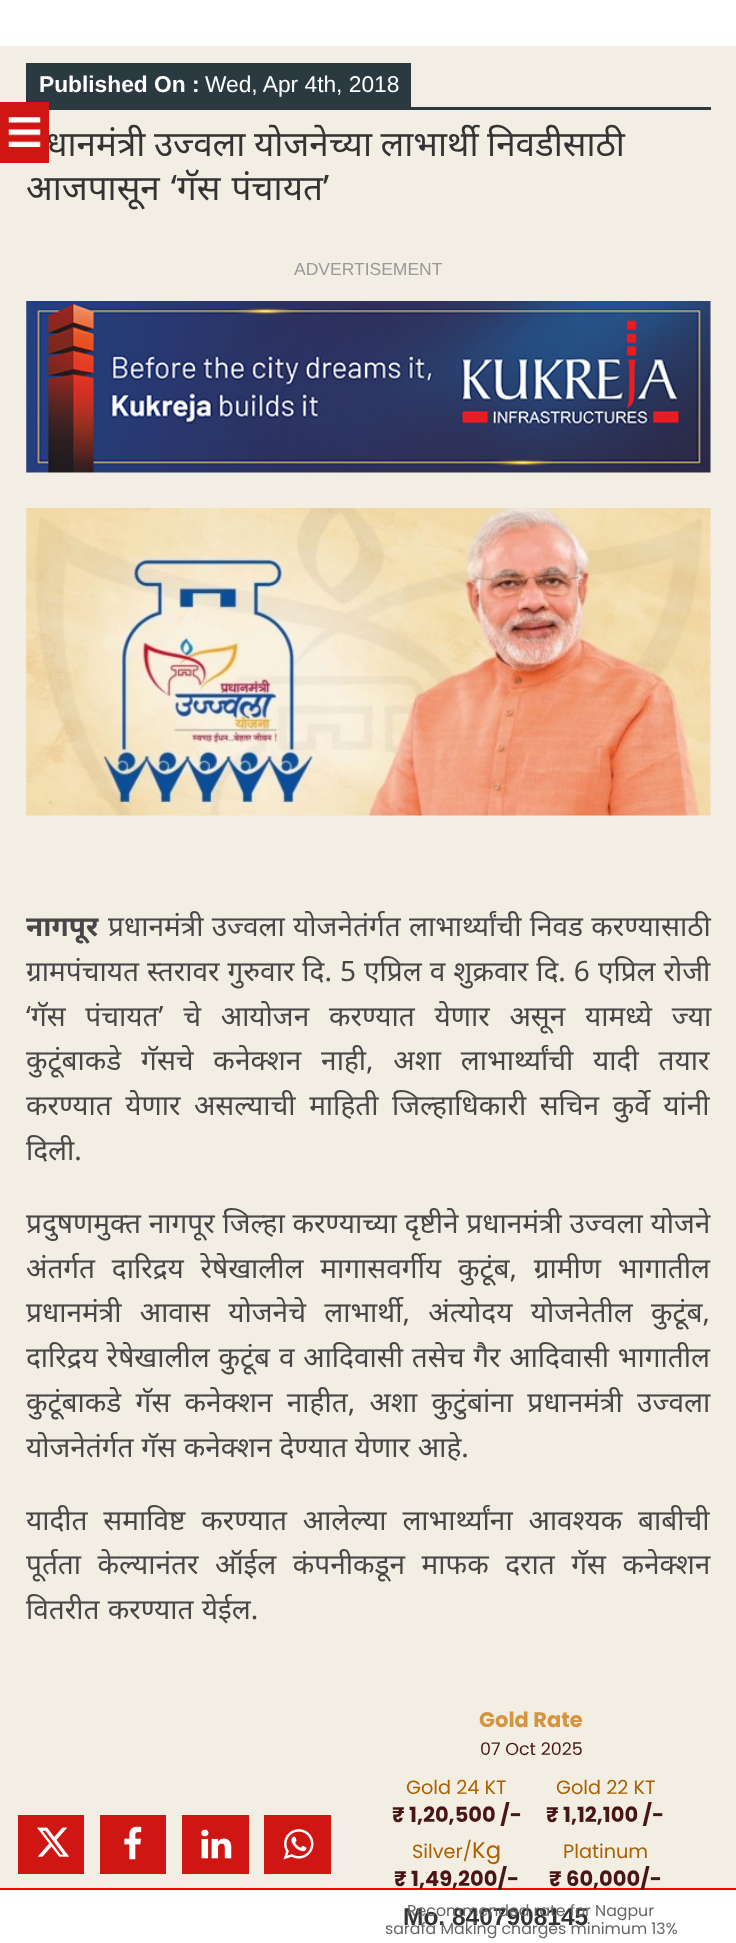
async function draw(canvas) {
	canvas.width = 736;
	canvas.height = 1943;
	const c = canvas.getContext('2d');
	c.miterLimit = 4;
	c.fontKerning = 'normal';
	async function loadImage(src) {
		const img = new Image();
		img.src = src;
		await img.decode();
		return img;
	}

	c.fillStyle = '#f2eee3';
	c.fillRect(0, 0, 736, 1943);
	for (const [x, y, w, h, color] of [
		[0, 0, 736, 46, '#fff'],
		[49, 107, 662, 3, '#2b3a41'],
		[26, 63, 385, 44, '#2b3a41'],
	]) {
		c.fillStyle = color;
		c.fillRect(x, y, w, h);
	}
	c.font = 'bold 22.75px Liberation Sans';
	c.fillStyle = '#fff';
	c.fillText('Published On :', 39, 92);
	c.font = '22.75px Liberation Sans';
	c.fillText('Wed, Apr 4th, 2018', 205, 92);
	c.wordSpacing = '-0.5px';
	c.font = '35px Noto Sans';
	c.fillStyle = '#333';
	c.fillText('धानमंत्री उज्वला योजनेच्या लाभार्थी निवडीसाठी', 46, 156);
	c.wordSpacing = '2px';
	c.fillText('आजपासून ‘गॅस पंचायत’', 26, 200);
	c.wordSpacing = '0px';
	c.font = '17.5px Liberation Sans';
	c.fillStyle = '#999';
	c.fillText('ADVERTISEMENT', 294, 275);
	c.drawImage(await loadImage('img1.png'), 26, 301, 685, 172);
	c.drawImage(await loadImage('img2.png'), 26, 508, 685, 308);
	c.font = 'bold 28px Noto Sans';
	c.fillStyle = '#474747';
	c.fillText('नागपूर', 26, 936);
	c.wordSpacing = '1px';
	c.font = '28px Noto Sans';
	c.fillText('प्रधानमंत्री उज्वला योजनेतंर्गत लाभार्थ्यांची निवड करण्यासाठी', 108, 936);
	c.wordSpacing = '0.75px';
	c.fillText('ग्रामपंचायत स्तरावर गुरुवार दि. 5 एप्रिल व शुक्रवार दि. 6 एप्रिल रोजी', 26, 981);
	c.wordSpacing = '12.5px';
	c.fillText('‘गॅस पंचायत’ चे आयोजन करण्यात येणार असून यामध्ये ज्या', 26, 1026);
	c.fillText('कुटूंबाकडे गॅसचे कनेक्शन नाही, अशा लाभार्थ्यांची यादी तयार', 26, 1070);
	c.wordSpacing = '6.25px';
	c.fillText('करण्यात येणार असल्याची माहिती जिल्हाधिकारी सचिन कुर्वे यांनी', 26, 1115);
	c.wordSpacing = '0px';
	c.fillText('दिली.', 26, 1160);
	c.wordSpacing = '0.5px';
	c.fillText('प्रदुषणमुक्त नागपूर जिल्हा करण्याच्या दृष्टीने प्रधानमंत्री उज्वला योजने', 26, 1233);
	c.wordSpacing = '9.5px';
	c.fillText('अंतर्गत दारिद्रय रेषेखालील मागासवर्गीय कुटूंब, ग्रामीण भागातील', 26, 1278);
	c.wordSpacing = '11px';
	c.fillText('प्रधानमंत्री आवास योजनेचे लाभार्थी, अंत्योदय योजनेतील कुटूंब,', 26, 1322);
	c.wordSpacing = '1.5px';
	c.fillText('दारिद्रय रेषेखालील कुटूंब व आदिवासी तसेच गैर आदिवासी भागातील', 26, 1367);
	c.wordSpacing = '7px';
	c.fillText('कुटूंबाकडे गॅस कनेक्शन नाहीत, अशा कुटुंबांना प्रधानमंत्री उज्वला', 26, 1412);
	c.wordSpacing = '0.5px';
	c.fillText('योजनेतंर्गत गॅस कनेक्शन देण्यात येणार आहे.', 26, 1457);
	c.wordSpacing = '8.5px';
	c.fillText('यादीत समाविष्ट करण्यात आलेल्या लाभार्थ्यांना आवश्यक बाबीची', 26, 1530);
	c.wordSpacing = '9.25px';
	c.fillText('पूर्तता केल्यानंतर ऑईल कंपनीकडून माफक दरात गॅस कनेक्शन', 26, 1574);
	c.wordSpacing = '1px';
	c.fillText('वितरीत करण्यात येईल.', 26, 1619);
	c.wordSpacing = '0px';
	c.font = 'bold 21px Poppins';
	c.fillStyle = '#d5943f';
	c.fillText('Gold Rate', 479, 1727);
	c.font = '17.5px Poppins';
	c.fillStyle = '#4a1515';
	c.fillText('07 Oct 2025', 480, 1755);
	c.font = '19.25px Poppins';
	c.fillStyle = '#ab6100';
	c.fillText('Gold 24 KT', 406, 1794);
	c.font = 'bold 21px Poppins';
	c.fillStyle = '#4a1515';
	c.fillText('₹ 1,20,500 /-', 392, 1822);
	c.font = '19.25px Poppins';
	c.fillStyle = '#ab6100';
	c.fillText('Gold 22 KT', 556, 1794);
	c.font = 'bold 21px Poppins';
	c.fillStyle = '#4a1515';
	c.fillText('₹ 1,12,100 /-', 546, 1822);
	c.font = '19.25px Poppins';
	c.fillStyle = '#ab6100';
	c.fillText('Silver/', 412, 1858);
	c.font = '22.75px Poppins';
	c.fillText('Kg', 472, 1858);
	c.fillStyle = '#f00';
	c.fillRect(0, 1888, 736, 2);
	c.font = 'bold 21px Poppins';
	c.fillStyle = '#4a1515';
	c.fillText('₹ 1,49,200/-', 394, 1886);
	c.font = '19.25px Poppins';
	c.fillStyle = '#ab6100';
	c.fillText('Platinum', 563, 1858);
	c.font = 'bold 21px Poppins';
	c.fillStyle = '#4a1515';
	c.fillText('₹ 60,000/-', 549, 1886);
	c.fillStyle = '#fff';
	c.fillRect(0, 1890, 736, 53);
	c.font = 'bold 24.5px Liberation Sans';
	c.fillStyle = '#333';
	c.fillText('Mo. 8407908145', 403, 1925);
	c.font = '15.75px Poppins';
	c.fillStyle = '#666';
	c.fillText('Recommended rate for Nagpur', 407, 1916);
	c.fillText('sarafa Making charges minimum 13%', 385, 1934);
	c.fillStyle = '#cf1613';
	c.fillRect(18, 1815, 66, 59);
	c.drawImage(await loadImage('img3.png'), 37, 1827, 32, 30);
	c.fillRect(100, 1815, 66, 59);
	c.drawImage(await loadImage('img4.png'), 124, 1826, 18, 34);
	c.fillRect(182, 1815, 67, 59);
	c.drawImage(await loadImage('img5.png'), 201, 1829, 31, 30);
	c.fillRect(264, 1815, 67, 59);
	c.drawImage(await loadImage('img6.png'), 283, 1829, 31, 31);
	c.fillRect(0, 102, 49, 61);
	c.drawImage(await loadImage('img7.png'), 8, 117, 33, 30);
}

draw(document.querySelector('canvas'));
